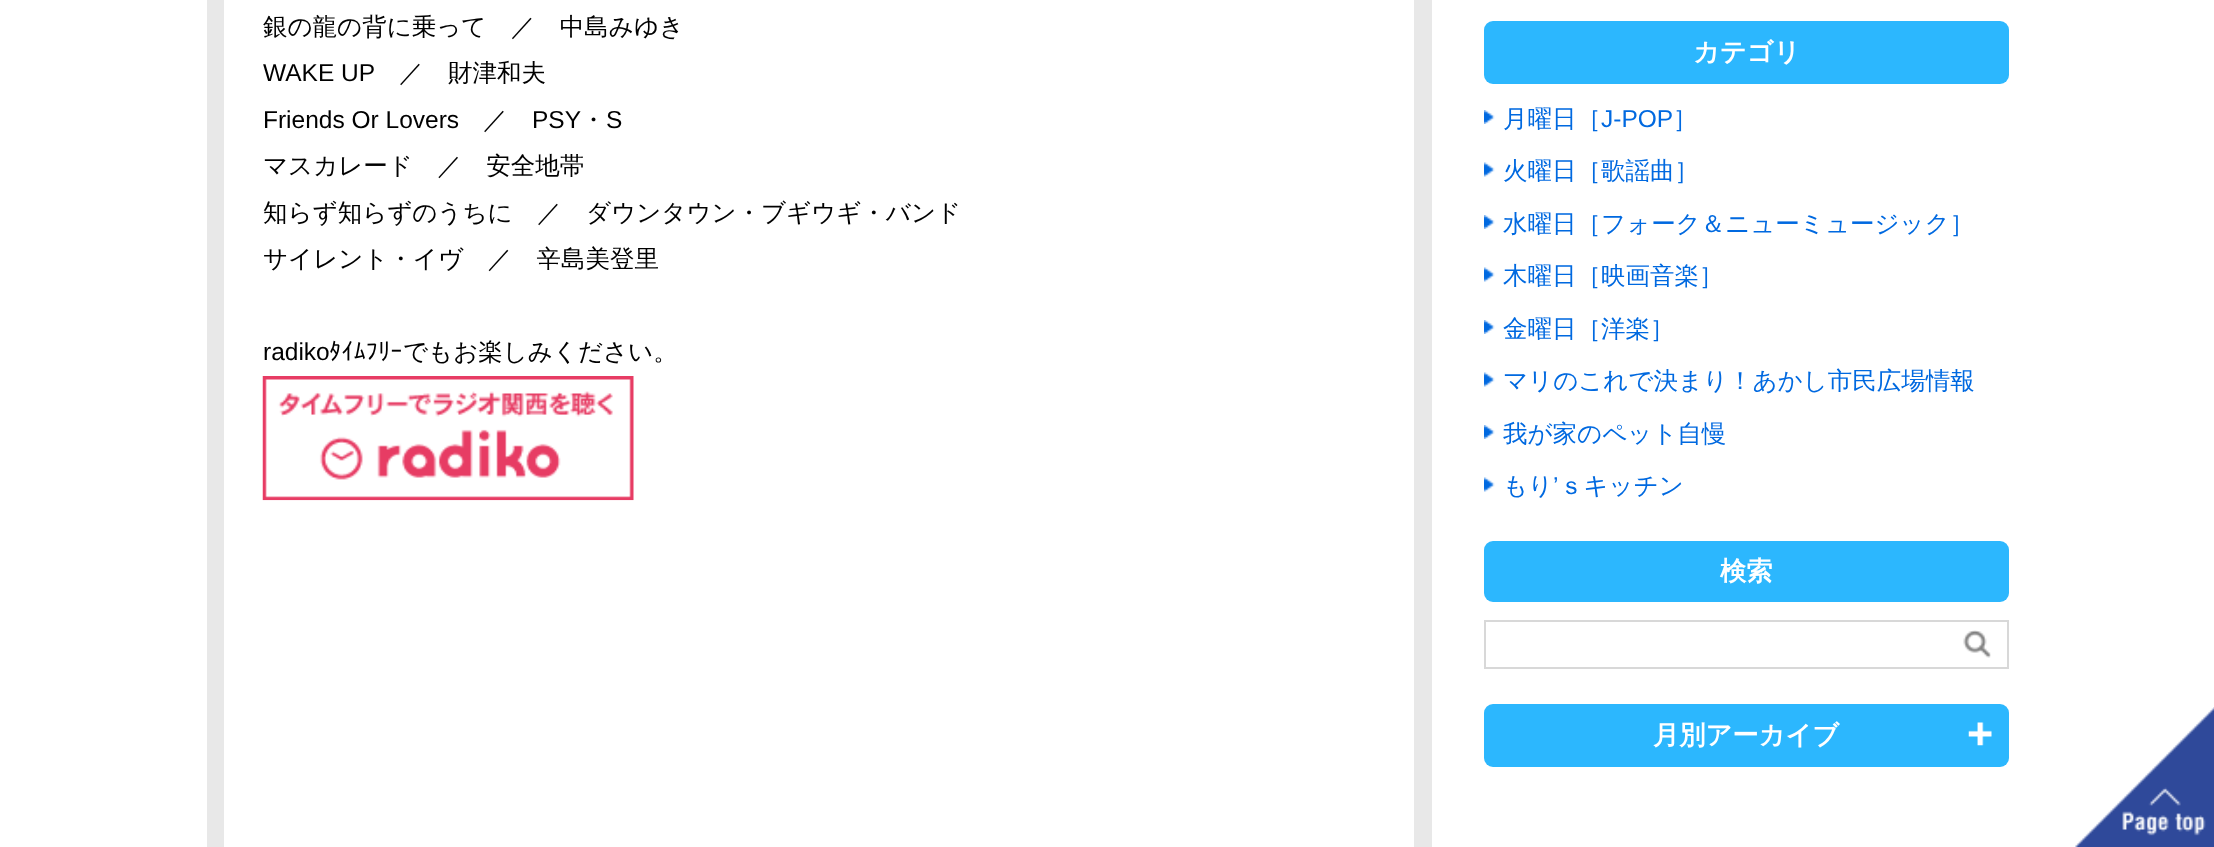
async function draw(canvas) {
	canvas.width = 2214;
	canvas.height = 847;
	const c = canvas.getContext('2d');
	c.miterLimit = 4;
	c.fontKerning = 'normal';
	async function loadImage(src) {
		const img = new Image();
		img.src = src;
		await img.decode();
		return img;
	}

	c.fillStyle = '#fff';
	c.fillRect(0, 0, 2214, 847);
	c.fillStyle = '#e8e8e8';
	c.fillRect(207, 0, 1225, 847);
	c.fillStyle = '#fff';
	c.fillRect(224, 0, 1190, 847);
	c.font = '500 24.5px WenQuanYi Zen Hei';
	c.fillStyle = '#000';
	c.fillText('銀の龍の背に乗って　／　中島みゆき', 263, 35);
	c.font = '24.5px Liberation Sans';
	c.fillText('WAKE UP', 263, 81);
	c.font = '500 24.5px WenQuanYi Zen Hei';
	c.fillText('／　財津和夫', 399, 81);
	c.font = '24.5px Liberation Sans';
	c.fillText('Friends Or Lovers', 263, 128);
	c.font = '500 24.5px WenQuanYi Zen Hei';
	c.fillText('／', 483, 128);
	c.font = '24.5px Liberation Sans';
	c.fillText('PSY', 532, 128);
	c.font = '500 24.5px WenQuanYi Zen Hei';
	c.fillText('・', 581, 128);
	c.font = '24.5px Liberation Sans';
	c.fillText('S', 606, 128);
	c.font = '500 24.5px WenQuanYi Zen Hei';
	for (const [text, x, y] of [
		['マスカレード　／　安全地帯', 263, 174],
		['知らず知らずのうちに　／　ダウンタウン・ブギウギ・バンド', 263, 221],
		['サイレント・イヴ　／　辛島美登里', 263, 267],
	]) {
		c.fillText(text, x, y);
	}
	c.font = '24.5px Liberation Sans';
	c.fillText('radiko', 263, 360);
	c.font = '24.5px IPAPGothic';
	c.fillText('ﾀｲﾑﾌﾘｰ', 329, 360);
	c.font = '500 24.5px WenQuanYi Zen Hei';
	c.fillText('でもお楽しみください。', 403, 360);
	c.drawImage(await loadImage('img1.png'), 262, 376, 372, 125);
	c.fillStyle = '#2cb7fe';
	c.beginPath();
	c.roundRect(1484, 21, 525, 63, 9);
	c.fill();
	c.font = 'bold 26.25px WenQuanYi Zen Hei';
	c.fillStyle = '#fff';
	c.fillText('カテゴリ', 1693, 61);
	c.drawImage(await loadImage('img2.png'), 1484, 110, 11, 14);
	c.font = '500 24.5px WenQuanYi Zen Hei';
	c.fillStyle = '#0069e0';
	c.fillText('月曜日［', 1503, 127);
	c.font = '24.5px Liberation Sans';
	c.fillText('J-POP', 1601, 127);
	c.font = '500 24.5px WenQuanYi Zen Hei';
	c.fillText('］', 1673, 127);
	c.drawImage(await loadImage('img3.png'), 1484, 162, 11, 15);
	c.fillText('火曜日［歌謡曲］', 1503, 179);
	c.drawImage(await loadImage('img2.png'), 1484, 215, 11, 14);
	c.fillText('水曜日［フォーク＆ニューミュージック］', 1503, 232);
	c.drawImage(await loadImage('img3.png'), 1484, 267, 11, 15);
	c.fillText('木曜日［映画音楽］', 1503, 284);
	c.drawImage(await loadImage('img2.png'), 1484, 320, 11, 14);
	c.fillText('金曜日［洋楽］', 1503, 337);
	c.drawImage(await loadImage('img3.png'), 1484, 372, 11, 15);
	c.fillText('マリのこれで決まり！あかし市民広場情報', 1503, 389);
	c.drawImage(await loadImage('img2.png'), 1484, 425, 11, 14);
	c.fillText('我が家のペット自慢', 1503, 442);
	c.drawImage(await loadImage('img3.png'), 1484, 477, 11, 15);
	c.fillText('もり', 1503, 494);
	c.font = '24.5px Liberation Sans';
	c.fillText('’', 1553, 494);
	c.font = '500 24.5px WenQuanYi Zen Hei';
	c.fillText('ｓキッチン', 1559, 494);
	c.fillStyle = '#2cb7fe';
	c.beginPath();
	c.roundRect(1484, 541, 525, 61, 9);
	c.fill();
	c.font = 'bold 26.25px WenQuanYi Zen Hei';
	c.fillStyle = '#fff';
	c.fillText('検索', 1720, 580);
	c.strokeStyle = '#d8d8d8';
	c.lineWidth = 2;
	c.strokeRect(1485, 621, 523, 47);
	c.drawImage(await loadImage('img4.png'), 1963, 630, 28, 28);
	c.fillStyle = '#2cb7fe';
	c.beginPath();
	c.roundRect(1484, 704, 525, 63, 9);
	c.fill();
	c.fillStyle = '#fff';
	c.fillText('月別アーカイブ', 1653, 744);
	c.drawImage(await loadImage('img5.png'), 1968, 722, 24, 24);
	c.drawImage(await loadImage('img6.png'), 2075, 707, 139, 140);
}

draw(document.querySelector('canvas'));
